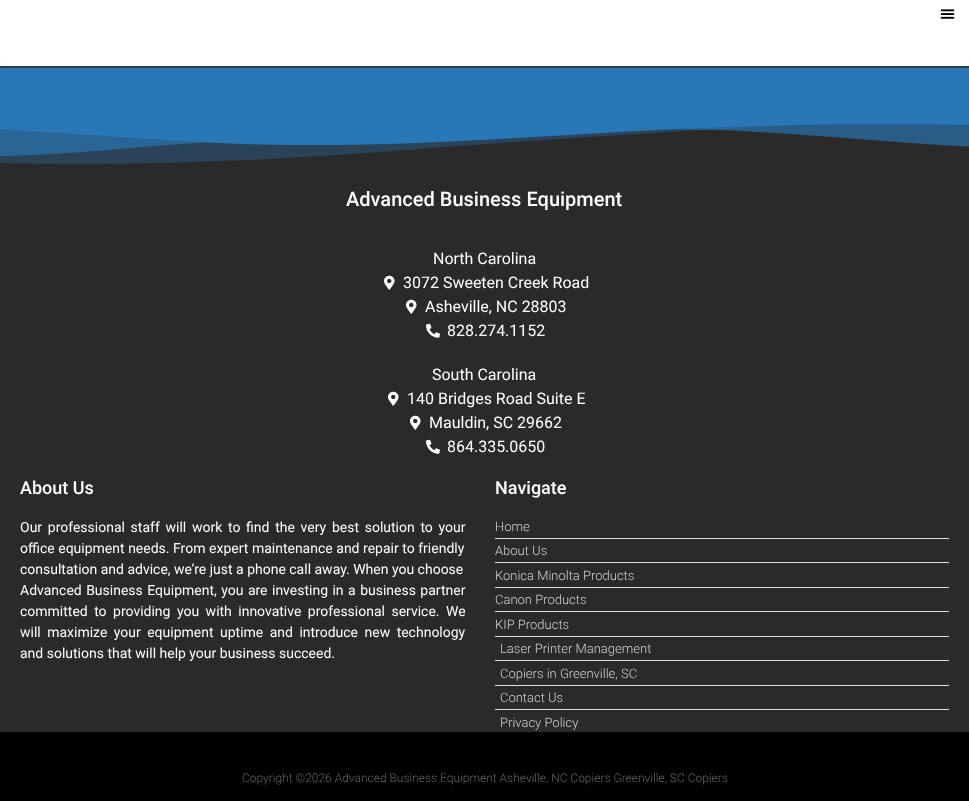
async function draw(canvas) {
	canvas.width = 969;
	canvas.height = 801;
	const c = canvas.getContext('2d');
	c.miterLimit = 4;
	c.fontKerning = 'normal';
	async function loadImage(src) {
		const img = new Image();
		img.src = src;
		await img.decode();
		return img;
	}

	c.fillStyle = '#fff';
	c.fillRect(0, 0, 969, 801);
	c.fillStyle = '#00000021';
	c.filter = 'blur(15px)';
	c.beginPath();
	c.roundRect(0, -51, 969, 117, 6);
	c.fill();
	c.filter = 'none';
	c.fillStyle = '#fff';
	c.beginPath();
	c.roundRect(0, -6, 969, 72, 6);
	c.fill();
	c.drawImage(await loadImage('img1.png'), 940, 9, 15, 10);
	for (const [x, y, w, h, color] of [
		[0, 68, 969, 51, '#2977b7'],
		[0, 66, 969, 2, '#3c3c3c'],
		[0, 124, 969, 608, '#2a2a2a'],
	]) {
		c.fillStyle = color;
		c.fillRect(x, y, w, h);
	}
	c.drawImage(await loadImage('img2.png'), 0, 119, 969, 45);
	c.font = '500 20px Roboto';
	c.fillStyle = '#fff';
	c.fillText('Advanced Business Equipment', 346, 206);
	c.font = '16px Roboto';
	c.fillText('North Carolina', 433, 264);
	c.drawImage(await loadImage('img3.png'), 384, 275, 11, 15);
	c.fillText('3072 Sweeten Creek Road', 403, 288);
	c.drawImage(await loadImage('img3.png'), 406, 299, 11, 15);
	c.fillText('Asheville, NC 28803', 425, 312);
	c.drawImage(await loadImage('img4.png'), 426, 323, 14, 15);
	c.fillText('828.274.1152', 447, 336);
	c.fillText('South Carolina', 432, 380);
	c.drawImage(await loadImage('img3.png'), 388, 391, 11, 15);
	c.fillText('140 Bridges Road Suite E', 407, 404);
	c.drawImage(await loadImage('img3.png'), 410, 415, 11, 15);
	c.fillText('Mauldin, SC 29662', 429, 428);
	c.drawImage(await loadImage('img4.png'), 426, 439, 14, 15);
	c.fillText('864.335.0650', 447, 452);
	c.font = '500 18px Roboto';
	c.fillText('About Us', 20, 494);
	c.wordSpacing = '2.25px';
	c.font = '14px Roboto';
	c.fillText('Our professional staff will work to find the very best solution to your', 20, 532);
	c.wordSpacing = '0.1px';
	c.fillText('office equipment needs. From expert maintenance and repair to friendly', 20, 553);
	c.wordSpacing = '0px';
	c.fillText('consultation and advice, we’re just a phone call away. When you choose', 20, 574);
	c.wordSpacing = '1px';
	c.fillText('Advanced Business Equipment, you are investing in a business partner', 20, 595);
	c.wordSpacing = '3px';
	c.fillText('committed to providing you with innovative professional service. We', 20, 616);
	c.fillText('will maximize your equipment uptime and introduce new technology', 20, 637);
	c.wordSpacing = '0px';
	c.fillText('and solutions that will help your business succeed.', 20, 658);
	c.font = '500 18px Roboto';
	c.fillText('Navigate', 495, 494);
	c.font = '300 13px Roboto';
	c.fillStyle = '#d2d2d2';
	c.fillText('Home', 495, 531);
	c.fillStyle = '#ddd';
	c.fillRect(495, 538, 454, 1);
	c.fillStyle = '#d2d2d2';
	c.fillText('About Us', 495, 555);
	c.fillStyle = '#ddd';
	c.fillRect(495, 562, 454, 1);
	c.fillStyle = '#d2d2d2';
	c.fillText('Konica Minolta Products', 495, 580);
	c.fillStyle = '#ddd';
	c.fillRect(495, 587, 454, 1);
	c.fillStyle = '#d2d2d2';
	c.fillText('Canon Products', 495, 604);
	c.fillStyle = '#ddd';
	c.fillRect(495, 611, 454, 1);
	c.fillStyle = '#d2d2d2';
	c.fillText('KIP Products', 495, 629);
	c.fillStyle = '#ddd';
	c.fillRect(495, 636, 454, 1);
	c.fillStyle = '#d2d2d2';
	c.fillText('Laser Printer Management', 500, 653);
	c.fillStyle = '#ddd';
	c.fillRect(495, 660, 454, 1);
	c.fillStyle = '#d2d2d2';
	c.fillText('Copiers in Greenville, SC', 500, 678);
	c.fillStyle = '#ddd';
	c.fillRect(495, 685, 454, 1);
	c.fillStyle = '#d2d2d2';
	c.fillText('Contact Us', 500, 702);
	c.fillStyle = '#ddd';
	c.fillRect(495, 709, 454, 1);
	c.fillStyle = '#d2d2d2';
	c.fillText('Privacy Policy', 500, 727);
	c.fillStyle = '#000';
	c.fillRect(0, 732, 969, 69);
	c.font = '300 12px Roboto';
	c.fillStyle = '#636363';
	c.fillText('Copyright ©2026 Advanced Business Equipment Asheville, NC Copiers Greenville, SC Copiers', 242, 782);
}

draw(document.querySelector('canvas'));
